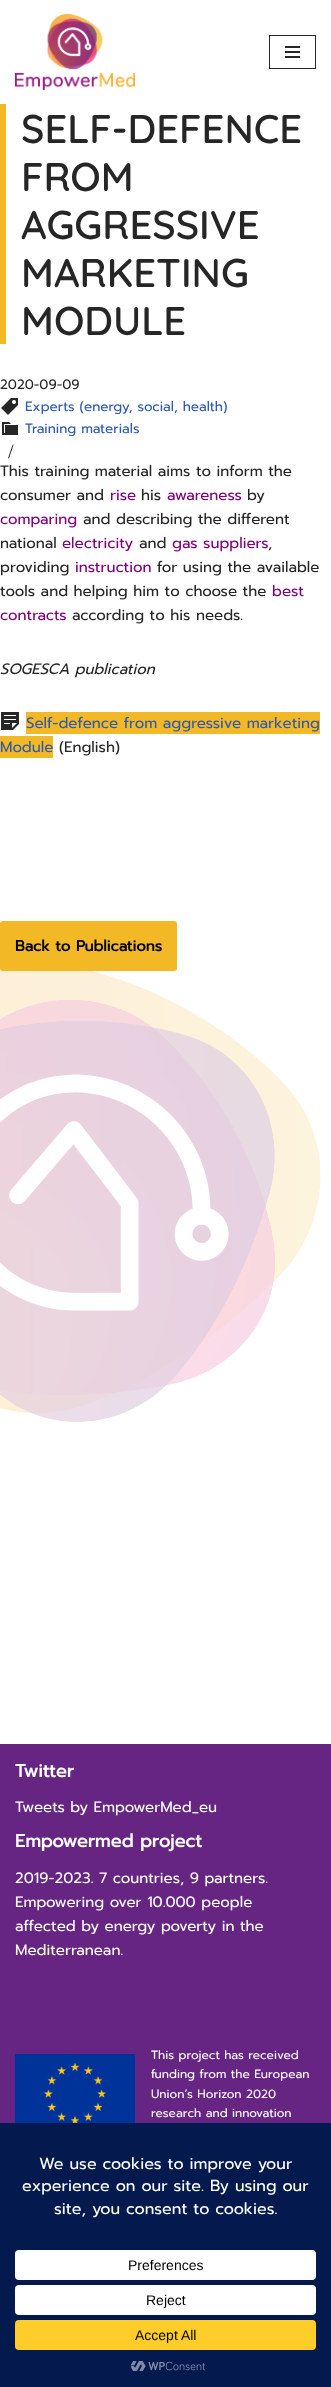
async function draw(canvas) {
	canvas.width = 331;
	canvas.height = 2387;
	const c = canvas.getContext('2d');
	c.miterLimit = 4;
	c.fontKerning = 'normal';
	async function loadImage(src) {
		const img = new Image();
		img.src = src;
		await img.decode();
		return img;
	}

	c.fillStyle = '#fff';
	c.fillRect(0, 0, 331, 2387);
	c.drawImage(await loadImage('img1.png'), 0, 968, 321, 454);
	c.drawImage(await loadImage('img2.png'), 15, 14, 120, 76);
	c.strokeStyle = '#272626';
	c.strokeRect(269.5, 35.5, 46, 33);
	for (const [x, y, w, h, color] of [
		[285, 46, 15, 2, '#272626'],
		[285, 51, 15, 2, '#272626'],
		[285, 56, 15, 2, '#272626'],
		[0, 104, 6, 240, '#f2b825'],
	]) {
		c.fillStyle = color;
		c.fillRect(x, y, w, h);
	}
	c.font = '600 40px Quicksand';
	c.fillStyle = '#272626';
	for (const [text, x, y] of [
		['SELF-DEFENCE', 21, 143],
		['FROM', 21, 191],
		['AGGRESSIVE', 21, 239],
		['MARKETING', 21, 287],
		['MODULE', 21, 335],
	]) {
		c.fillText(text, x, y);
	}
	c.font = '13.5px Prompt';
	c.fillText('2020-09-09', 0, 389);
	c.drawImage(await loadImage('img3.png'), 1, 398, 17, 17);
	c.fillStyle = '#2f5aae';
	c.fillText('Experts (energy, social, health)', 25, 411);
	c.fillText('Training materials', 25, 433);
	c.drawImage(await loadImage('img4.png'), 2, 422, 16, 13);
	c.font = '20px Liberation Serif';
	c.fillStyle = '#272626';
	c.fillText('/', 8, 458);
	c.font = '15px Prompt';
	c.fillText('This training material aims to inform the', 0, 476);
	c.fillText('consumer and', 0, 500);
	c.fillStyle = '#800080';
	c.fillText('rise', 110, 500);
	c.fillStyle = '#272626';
	c.fillText('his', 141, 500);
	c.fillStyle = '#800080';
	c.fillText('awareness', 167, 500);
	c.fillStyle = '#272626';
	c.fillText('by', 247, 500);
	c.fillStyle = '#800080';
	c.fillText('comparing', 0, 524);
	c.fillStyle = '#272626';
	c.fillText('and describing the different', 83, 524);
	c.fillText('national', 0, 548);
	c.fillStyle = '#800080';
	c.fillText('electricity', 62, 548);
	c.fillStyle = '#272626';
	c.fillText('and', 139, 548);
	c.fillStyle = '#800080';
	c.fillText('gas suppliers', 172, 548);
	c.fillStyle = '#272626';
	c.fillText(',', 268, 548);
	c.fillText('providing', 0, 572);
	c.fillStyle = '#800080';
	c.fillText('instruction', 75, 572);
	c.fillStyle = '#272626';
	c.fillText('for using the available', 157, 572);
	c.fillText('tools and helping him to choose the', 0, 596);
	c.fillStyle = '#800080';
	c.fillText('best', 272, 596);
	c.fillText('contracts', 0, 620);
	c.fillStyle = '#272626';
	c.fillText('according to his needs.', 72, 620);
	c.font = 'italic 15px Prompt';
	c.fillText('SOGESCA publication', 0, 674);
	c.drawImage(await loadImage('img5.png'), 1, 712, 18, 18);
	c.fillStyle = '#f2b825';
	c.fillRect(26, 712, 294, 22);
	c.font = '15px Prompt';
	c.fillStyle = '#2f5aae';
	c.fillText('Self-defence from aggressive marketing', 26, 728);
	c.fillStyle = '#f2b825';
	c.fillRect(0, 736, 53, 22);
	c.fillStyle = '#2f5aae';
	c.fillText('Module', 0, 752);
	c.fillStyle = '#272626';
	c.fillText('(English)', 59, 752);
	c.fillStyle = '#f2b825';
	c.beginPath();
	c.roundRect(0, 921, 177, 50, 3);
	c.fill();
	c.font = 'bold 15px Prompt';
	c.fillStyle = '#000';
	c.fillText('Back to Publications', 15, 951);
	c.fillStyle = '#662483';
	c.fillRect(0, 1744, 331, 379);
	c.font = 'bold 18px Prompt';
	c.fillStyle = '#fff';
	c.fillText('Twitter', 15, 1777);
	c.font = '15px Prompt';
	c.fillText('Tweets by EmpowerMed_eu', 15, 1812);
	c.font = 'bold 18px Prompt';
	c.fillText('Empowermed project', 15, 1847);
	c.font = '15px Prompt';
	for (const [text, x, y] of [
		['2019-2023. 7 countries, 9 partners.', 15, 1883],
		['Empowering over 10.000 people', 15, 1907],
		['affected by energy poverty in the', 15, 1931],
		['Mediterranean.', 15, 1955],
	]) {
		c.fillText(text, x, y);
	}
	c.drawImage(await loadImage('img6.png'), 15, 2054, 120, 69);
	c.font = '12px Prompt';
	for (const [text, x, y] of [
		['This project has received', 151, 2059],
		['funding from the European', 151, 2078],
		['Union’s Horizon 2020', 151, 2098],
		['research and innovation', 151, 2117],
	]) {
		c.fillText(text, x, y);
	}
	c.fillStyle = '#04194e';
	c.fillRect(0, 2123, 331, 264);
	c.font = '16px Prompt';
	c.fillStyle = '#fff';
	for (const [text, x, y] of [
		['We use cookies to improve your', 39, 2169],
		['experience on our site. By using our', 22, 2191],
		['site, you consent to cookies.', 54, 2214],
	]) {
		c.fillText(text, x, y);
	}
	c.beginPath();
	c.roundRect(15, 2250, 301, 30, 4);
	c.fill();
	c.font = '14px Liberation Sans';
	c.fillStyle = '#000';
	c.fillText('Preferences', 128, 2270);
	c.fillStyle = '#fff';
	c.beginPath();
	c.roundRect(15, 2285, 301, 30, 4);
	c.fill();
	c.fillStyle = '#000';
	c.fillText('Reject', 146, 2305);
	c.fillStyle = '#ffcd2a';
	c.beginPath();
	c.roundRect(15, 2320, 301, 30, 4);
	c.fill();
	c.fillStyle = '#000';
	c.fillText('Accept All', 135, 2340);
	c.drawImage(await loadImage('img7.png'), 130, 2361, 75, 11);
}

draw(document.querySelector('canvas'));
